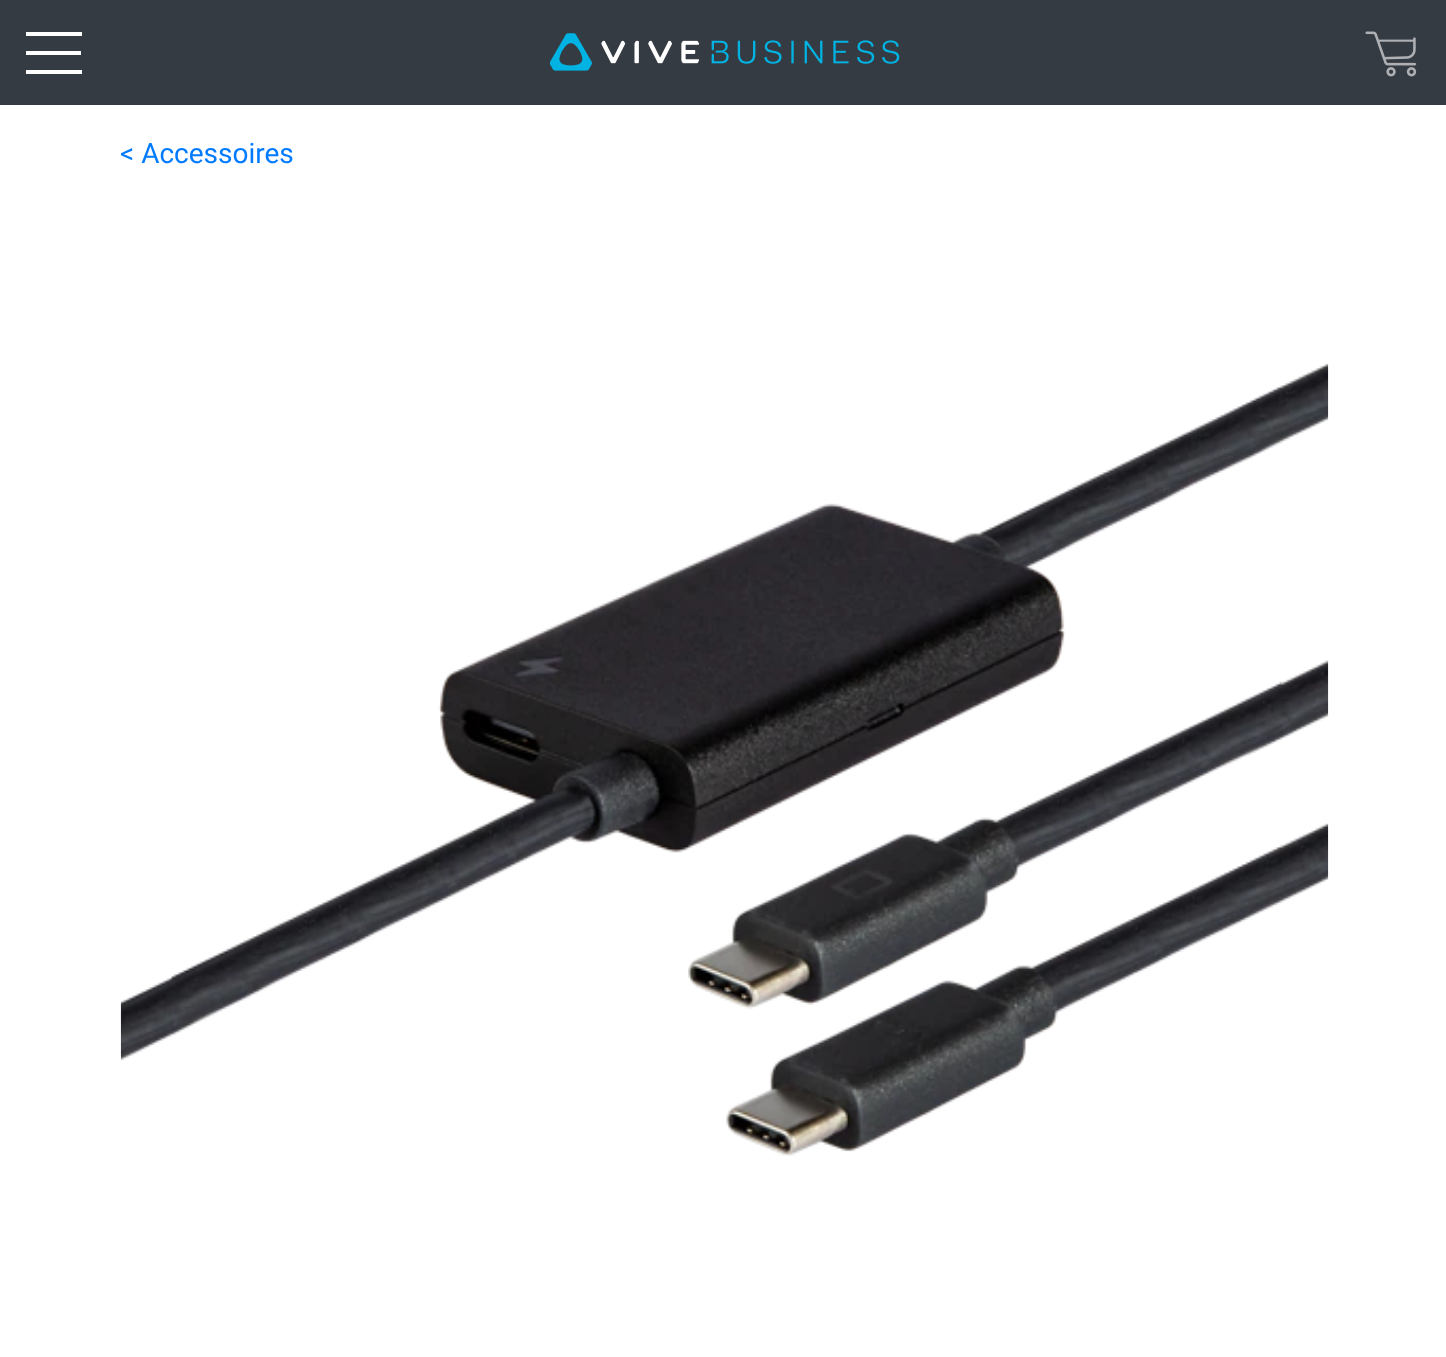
async function draw(canvas) {
	canvas.width = 1446;
	canvas.height = 1357;
	const c = canvas.getContext('2d');
	c.miterLimit = 4;
	c.fontKerning = 'normal';
	async function loadImage(src) {
		const img = new Image();
		img.src = src;
		await img.decode();
		return img;
	}

	c.fillStyle = '#fff';
	c.fillRect(0, 0, 1446, 1357);
	for (const [x, y, w, h, color] of [
		[0, 0, 1446, 105, '#353b42'],
		[26, 51, 55, 4, '#fff'],
		[26, 32, 56, 4, '#fff'],
		[26, 70, 56, 4, '#fff'],
	]) {
		c.fillStyle = color;
		c.fillRect(x, y, w, h);
	}
	c.drawImage(await loadImage('img1.png'), 550, 33, 350, 38);
	c.drawImage(await loadImage('img2.png'), 1365, 31, 52, 46);
	c.font = '28px Roboto';
	c.fillStyle = '#007bff';
	c.fillText('< Accessoires', 120, 163);
	c.drawImage(await loadImage('img3.png'), 120, 363, 1209, 793);
}

draw(document.querySelector('canvas'));
